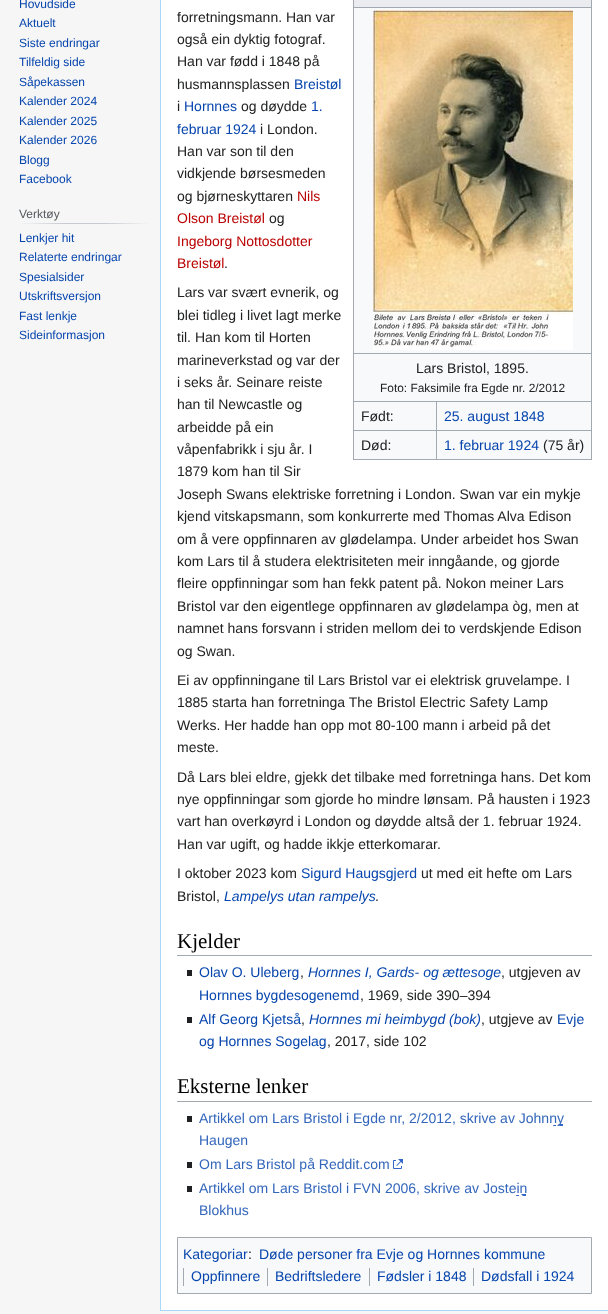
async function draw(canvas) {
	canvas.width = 608;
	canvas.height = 1314;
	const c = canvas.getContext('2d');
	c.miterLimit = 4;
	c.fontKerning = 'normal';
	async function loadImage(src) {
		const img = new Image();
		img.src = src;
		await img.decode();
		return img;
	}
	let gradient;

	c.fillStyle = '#f6f6f6';
	c.fillRect(0, 0, 608, 1314);
	c.font = '12px Liberation Sans';
	c.fillStyle = '#0645ad';
	for (const [text, x, y] of [
		['Hovudside', 19, 8],
		['Aktuelt', 19, 27],
		['Siste endringar', 19, 47],
		['Tilfeldig side', 19, 66],
		['Såpekassen', 19, 86],
		['Kalender 2024', 19, 105],
		['Kalender 2025', 19, 125],
		['Kalender 2026', 19, 144],
		['Blogg', 19, 164],
		['Facebook', 19, 183],
	]) {
		c.fillText(text, x, y);
	}
	gradient = c.createLinearGradient(19, 224, 150, 224);
	gradient.addColorStop(0, '#f6f6f6');
	gradient.addColorStop(0.33, '#c8ccd1');
	gradient.addColorStop(0.66, '#c8ccd1');
	gradient.addColorStop(1, '#f6f6f6');
	c.fillStyle = gradient;
	c.fillRect(19, 223, 131, 1);
	c.fillStyle = '#54595d';
	c.fillText('Verktøy', 19, 218);
	c.fillStyle = '#0645ad';
	for (const [text, x, y] of [
		['Lenkjer hit', 19, 242],
		['Relaterte endringar', 19, 261],
		['Spesialsider', 19, 281],
		['Utskriftsversjon', 19, 300],
		['Fast lenkje', 19, 320],
		['Sideinformasjon', 19, 339],
	]) {
		c.fillText(text, x, y);
	}
	for (const [x, y, w, h, color] of [
		[161, 0, 447, 1310, '#fff'],
		[160, 1310, 448, 1, '#a7d7f9'],
		[160, 0, 1, 1311, '#a7d7f9'],
	]) {
		c.fillStyle = color;
		c.fillRect(x, y, w, h);
	}
	c.font = '14px Liberation Sans';
	c.fillStyle = '#202122';
	for (const [text, x, y] of [
		['forretningsmann. Han var', 177, 22],
		['også ein dyktig fotograf.', 177, 44],
		['Han var fødd i 1848 på', 177, 66],
		['husmannsplassen', 177, 89],
	]) {
		c.fillText(text, x, y);
	}
	c.fillStyle = '#0645ad';
	c.fillText('Breistøl', 294, 89);
	c.fillStyle = '#202122';
	c.fillText('i', 177, 111);
	c.fillStyle = '#0645ad';
	c.fillText('Hornnes', 184, 111);
	c.fillStyle = '#202122';
	c.fillText('og døydde', 241, 111);
	c.fillStyle = '#0645ad';
	c.fillText('1.', 311, 111);
	c.fillText('februar 1924', 177, 134);
	c.fillStyle = '#202122';
	for (const [text, x, y] of [
		['i London.', 260, 134],
		['Han var son til den', 177, 156],
		['vidkjende børsesmeden', 177, 178],
		['og bjørneskyttaren', 177, 201],
	]) {
		c.fillText(text, x, y);
	}
	c.fillStyle = '#ba0000';
	c.fillText('Nils', 297, 201);
	c.fillText('Olson Breistøl', 177, 223);
	c.fillStyle = '#202122';
	c.fillText('og', 269, 223);
	c.fillStyle = '#ba0000';
	c.fillText('Ingeborg Nottosdotter', 177, 246);
	c.fillText('Breistøl', 177, 268);
	c.fillStyle = '#202122';
	for (const [text, x, y] of [
		['.', 224, 268],
		['Lars var svært evnerik, og', 177, 297],
		['blei tidleg i livet lagt merke', 177, 320],
		['til. Han kom til Horten', 177, 342],
		['marineverkstad og var der', 177, 365],
		['i seks år. Seinare reiste', 177, 387],
		['han til Newcastle og', 177, 409],
		['arbeidde på ein', 177, 432],
		['våpenfabrikk i sju år. I', 177, 454],
		['1879 kom han til Sir', 177, 476],
		['Joseph Swans elektriske forretning i London. Swan var ein mykje', 177, 499],
		['kjend vitskapsmann, som konkurrerte med Thomas Alva Edison', 177, 521],
		['om å vere oppfinnaren av glødelampa. Under arbeidet hos Swan', 177, 544],
		['kom Lars til å studera elektrisiteten meir inngåande, og gjorde', 177, 566],
		['fleire oppfinningar som han fekk patent på. Nokon meiner Lars', 177, 588],
		['Bristol var den eigentlege oppfinnaren av glødelampa òg, men at', 177, 611],
		['namnet hans forsvann i striden mellom dei to verdskjende Edison', 177, 633],
		['og Swan.', 177, 656],
	]) {
		c.fillText(text, x, y);
	}
	for (const [x, y, w, h, color] of [
		[354, 8, 237, 451, '#f8f9fa'],
		[354, 0, 238, 7, '#eaecf0'],
		[591, 0, 1, 460, '#a2a9b1'],
		[353, 459, 239, 1, '#a2a9b1'],
		[353, 0, 1, 460, '#a2a9b1'],
		[353, 7, 239, 1, '#a2a9b1'],
	]) {
		c.fillStyle = color;
		c.fillRect(x, y, w, h);
	}
	c.drawImage(await loadImage('img1.png'), 373, 10, 200, 340);
	c.fillRect(353, 353, 239, 1);
	c.fillStyle = '#202122';
	c.fillText('Lars Bristol, 1895.', 416, 373);
	c.font = '11.9px Liberation Sans';
	c.fillText('Foto: Faksimile fra Egde nr. 2/2012', 380, 392);
	for (const [x, y, w, h, color] of [
		[436, 401, 156, 1, '#a2a9b1'],
		[436, 430, 156, 1, '#a2a9b1'],
		[436, 430, 1, 30, '#a2a9b1'],
		[353, 430, 84, 1, '#a2a9b1'],
		[436, 401, 1, 30, '#a2a9b1'],
		[353, 401, 84, 1, '#a2a9b1'],
	]) {
		c.fillStyle = color;
		c.fillRect(x, y, w, h);
	}
	c.font = '14px Liberation Sans';
	c.fillStyle = '#202122';
	c.fillText('Født:', 361, 421);
	c.fillStyle = '#0645ad';
	c.fillText('25. august 1848', 444, 421);
	c.fillStyle = '#202122';
	c.fillText('Død:', 361, 450);
	c.fillStyle = '#0645ad';
	c.fillText('1. februar 1924', 444, 450);
	c.fillStyle = '#202122';
	for (const [text, x, y] of [
		['(75 år)', 543, 450],
		['Ei av oppfinningane til Lars Bristol var ei elektrisk gruvelampe. I', 177, 685],
		['1885 starta han forretninga The Bristol Electric Safety Lamp', 177, 707],
		['Werks. Her hadde han opp mot 80-100 mann i arbeid på det', 177, 730],
		['meste.', 177, 752],
		['Då Lars blei eldre, gjekk det tilbake med forretninga hans. Det kom', 177, 782],
		['nye oppfinningar som gjorde ho mindre lønsam. På hausten i 1923', 177, 804],
		['vart han overkøyrd i London og døydde altså der 1. februar 1924.', 177, 826],
		['Han var ugift, og hadde ikkje etterkomarar.', 177, 849],
		['I oktober 2023 kom', 177, 878],
	]) {
		c.fillText(text, x, y);
	}
	c.fillStyle = '#0645ad';
	c.fillText('Sigurd Haugsgjerd', 301, 878);
	c.fillStyle = '#202122';
	c.fillText('ut med eit hefte om Lars', 421, 878);
	c.fillText('Bristol,', 177, 901);
	c.font = 'italic 14px Liberation Sans';
	c.fillStyle = '#0645ad';
	c.fillText('Lampelys utan rampelys', 224, 901);
	c.font = '14px Liberation Sans';
	c.fillStyle = '#202122';
	c.fillText('.', 375, 901);
	c.fillStyle = '#a2a9b1';
	c.fillRect(177, 955, 415, 1);
	c.font = '21px Liberation Serif';
	c.fillStyle = '#000';
	c.fillText('Kjelder', 177, 948);
	c.fillStyle = '#202122';
	c.fillRect(187, 970, 5, 6);
	c.font = '14px Liberation Sans';
	c.fillStyle = '#0645ad';
	c.fillText('Olav O. Uleberg', 199, 977);
	c.fillStyle = '#202122';
	c.fillText(',', 300, 977);
	c.font = 'italic 14px Liberation Sans';
	c.fillStyle = '#0645ad';
	c.fillText('Hornnes I, Gards- og ættesoge', 308, 977);
	c.font = '14px Liberation Sans';
	c.fillStyle = '#202122';
	c.fillText(', utgjeven av', 501, 977);
	c.fillStyle = '#0645ad';
	c.fillText('Hornnes bygdesogenemd', 199, 1000);
	c.fillStyle = '#202122';
	c.fillText(', 1969, side 390–394', 360, 1000);
	c.fillRect(187, 1017, 5, 6);
	c.fillStyle = '#0645ad';
	c.fillText('Alf Georg Kjetså', 199, 1024);
	c.fillStyle = '#202122';
	c.fillText(',', 301, 1024);
	c.font = 'italic 14px Liberation Sans';
	c.fillStyle = '#0645ad';
	c.fillText('Hornnes mi heimbygd (bok)', 309, 1024);
	c.font = '14px Liberation Sans';
	c.fillStyle = '#202122';
	c.fillText(', utgjeve av', 481, 1024);
	c.fillStyle = '#0645ad';
	c.fillText('Evje', 557, 1024);
	c.fillText('og Hornnes Sogelag', 199, 1046);
	c.fillStyle = '#202122';
	c.fillText(', 2017, side 102', 327, 1046);
	c.fillStyle = '#a2a9b1';
	c.fillRect(177, 1101, 415, 1);
	c.font = '21px Liberation Serif';
	c.fillStyle = '#000';
	c.fillText('Eksterne lenker', 177, 1093);
	c.fillStyle = '#202122';
	c.fillRect(187, 1116, 5, 6);
	c.drawImage(await loadImage('img2.png'), 553, 1124, 10, 2);
	c.font = '14px Liberation Sans';
	c.fillStyle = '#36b';
	c.fillText('Artikkel om Lars Bristol i Egde nr, 2/2012, skrive av Johnny', 199, 1123);
	c.fillText('Haugen', 199, 1145);
	c.fillStyle = '#202122';
	c.fillRect(187, 1162, 5, 6);
	c.fillStyle = '#36b';
	c.fillText('Om Lars Bristol på Reddit.com', 199, 1169);
	c.drawImage(await loadImage('img3.png'), 393, 1159, 10, 10);
	c.fillStyle = '#202122';
	c.fillRect(187, 1186, 5, 6);
	c.drawImage(await loadImage('img2.png'), 516, 1194, 10, 2);
	c.fillStyle = '#36b';
	c.fillText('Artikkel om Lars Bristol i FVN 2006, skrive av Jostein', 199, 1193);
	c.fillText('Blokhus', 199, 1215);
	c.fillStyle = '#f8f9fa';
	c.beginPath();
	c.rect(177.5, 1237.5, 414, 56);
	c.fill();
	c.strokeStyle = '#a2a9b1';
	c.stroke();
	c.fillStyle = '#0645ad';
	c.fillText('Kategoriar', 183, 1259);
	c.fillText('Døde personer fra Evje og Hornnes kommune', 259, 1259);
	c.fillStyle = '#a2a9b1';
	c.fillRect(183, 1268, 1, 18);
	c.fillStyle = '#0645ad';
	c.fillText('Oppfinnere', 191, 1281);
	c.fillStyle = '#a2a9b1';
	c.fillRect(267, 1268, 1, 18);
	c.fillStyle = '#0645ad';
	c.fillText('Bedriftsledere', 275, 1281);
	c.fillStyle = '#a2a9b1';
	c.fillRect(369, 1268, 1, 18);
	c.fillStyle = '#0645ad';
	c.fillText('Fødsler i 1848', 377, 1281);
	c.fillStyle = '#a2a9b1';
	c.fillRect(473, 1268, 1, 18);
	c.fillStyle = '#0645ad';
	c.fillText('Dødsfall i 1924', 481, 1281);
	c.fillStyle = '#202122';
	c.fillText(':', 248, 1259);
}

draw(document.querySelector('canvas'));
